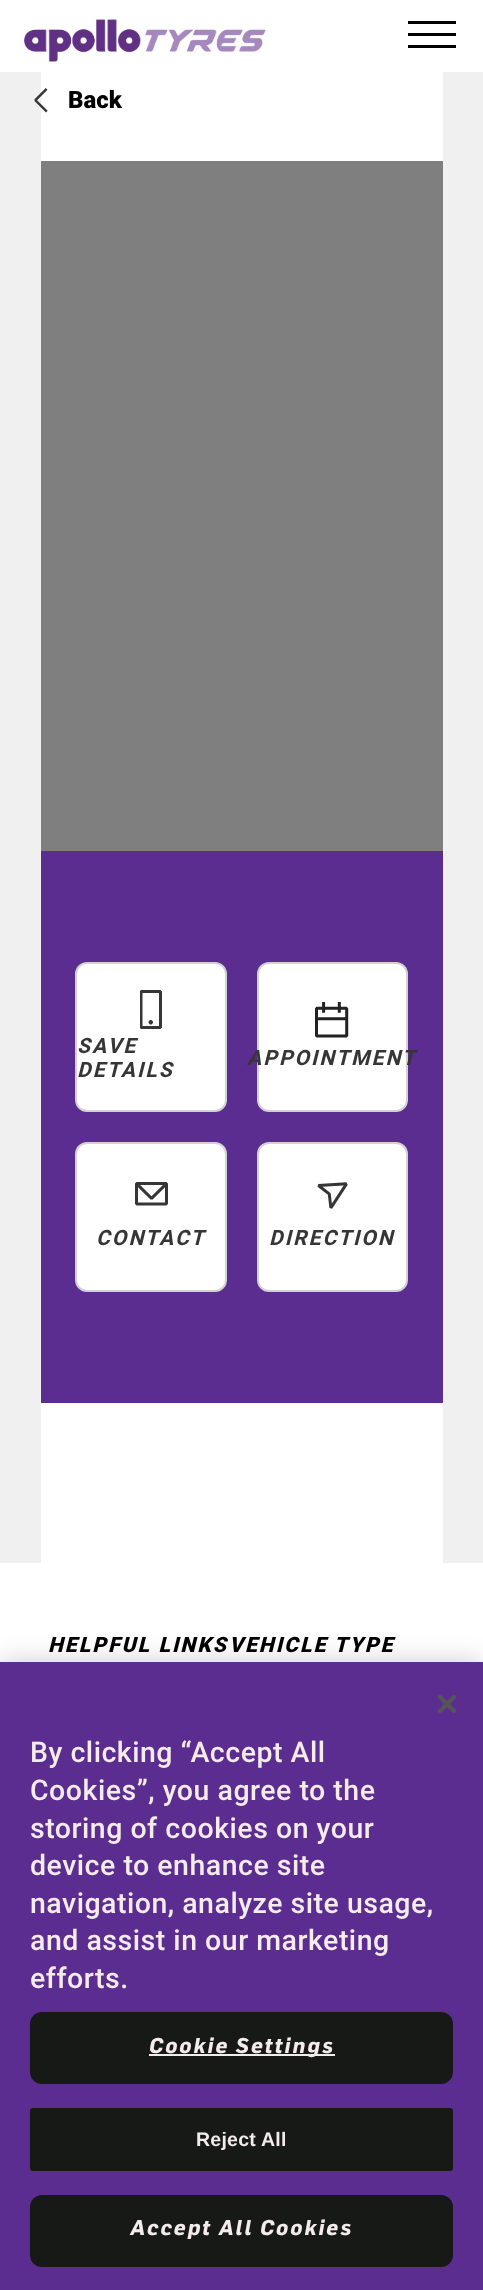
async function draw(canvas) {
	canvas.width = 483;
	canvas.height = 2290;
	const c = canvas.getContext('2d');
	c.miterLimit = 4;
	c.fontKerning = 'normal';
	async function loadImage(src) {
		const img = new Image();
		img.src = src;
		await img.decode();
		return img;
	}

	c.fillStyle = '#f0f0f0';
	c.fillRect(0, 0, 483, 2290);
	c.fillStyle = '#fff';
	c.fillRect(0, 0, 483, 72);
	c.drawImage(await loadImage('img1.png'), 24, 19, 242, 43);
	for (const [x, y, w, h, color] of [
		[408, 21, 48, 3, '#000'],
		[408, 33, 48, 3, '#000'],
		[408, 45, 48, 3, '#000'],
		[41, 72, 402, 1491, '#fff'],
	]) {
		c.fillStyle = color;
		c.fillRect(x, y, w, h);
	}
	c.drawImage(await loadImage('img2.png'), 34, 88, 14, 25);
	c.font = '900 24px Roboto';
	c.fillStyle = '#000';
	c.fillText('Back', 68, 108);
	c.fillStyle = '#7f7f7f';
	c.fillRect(41, 161, 402, 690);
	c.fillStyle = '#5c2d91';
	c.fillRect(41, 851, 402, 552);
	c.fillStyle = '#fff';
	c.beginPath();
	c.roundRect(76, 963, 150, 148, 11);
	c.fill();
	c.strokeStyle = '#d2d2d2';
	c.lineWidth = 2;
	c.stroke();
	c.drawImage(await loadImage('img3.png'), 140, 990, 22, 39);
	c.letterSpacing = '2.1px';
	c.font = 'italic bold 21px Roboto';
	c.fillStyle = '#363636';
	c.fillText('SAVE', 77, 1053);
	c.fillText('DETAILS', 77, 1077);
	c.fillStyle = '#fff';
	c.beginPath();
	c.roundRect(258, 963, 149, 148, 11);
	c.fill();
	c.stroke();
	c.drawImage(await loadImage('img4.png'), 315, 1002, 34, 36);
	c.fillStyle = '#363636';
	c.fillText('APPOINTMENT', 247, 1065);
	c.fillStyle = '#fff';
	c.beginPath();
	c.roundRect(76, 1143, 150, 148, 11);
	c.fill();
	c.stroke();
	c.drawImage(await loadImage('img5.png'), 135, 1182, 33, 24);
	c.fillStyle = '#363636';
	c.fillText('CONTACT', 96, 1245);
	c.fillStyle = '#fff';
	c.beginPath();
	c.roundRect(258, 1143, 149, 148, 11);
	c.fill();
	c.stroke();
	c.drawImage(await loadImage('img6.png'), 317, 1182, 31, 27);
	c.fillStyle = '#363636';
	c.fillText('DIRECTION', 269, 1245);
	c.fillStyle = '#fff';
	c.fillRect(0, 1563, 483, 99);
	c.font = 'italic 900 21px Roboto';
	c.fillStyle = '#000';
	c.fillText('HELPFUL LINKS', 48, 1652);
	c.fillText('VEHICLE TYPE', 229, 1652);
	c.fillStyle = '#00000033';
	c.filter = 'blur(13.5px)';
	c.beginPath();
	c.rect(0, 1662, 483, 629);
	c.fill();
	c.filter = 'none';
	c.fillStyle = '#5c2d91';
	c.fillRect(0, 1662, 483, 628);
	c.drawImage(await loadImage('img7.png'), 438, 1695, 18, 18);
	c.letterSpacing = '0.5px';
	c.font = '500 28.5px Roboto';
	c.fillStyle = '#f4ebeb';
	for (const [text, x, y] of [
		['By clicking “Accept All', 30, 1762],
		['Cookies”, you agree to the', 30, 1800],
		['storing of cookies on your', 30, 1838],
		['device to enhance site', 30, 1875],
		['navigation, analyze site usage,', 30, 1913],
		['and assist in our marketing', 30, 1950],
		['efforts.', 30, 1988],
	]) {
		c.fillText(text, x, y);
	}
	c.fillStyle = '#161915';
	c.beginPath();
	c.roundRect(30, 2012, 423, 72, 12);
	c.fill();
	c.fillStyle = '#f4ebeb';
	c.fillRect(149, 2054, 186, 2);
	c.letterSpacing = '2.1px';
	c.font = 'italic bold 21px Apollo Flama';
	c.fillText('Cookie Settings', 149, 2053);
	c.fillStyle = '#161915';
	c.beginPath();
	c.roundRect(31, 2109, 421, 61, 2);
	c.fill();
	c.strokeStyle = '#161915';
	c.stroke();
	c.letterSpacing = '0.25px';
	c.font = 'bold 19.5px Liberation Sans';
	c.fillStyle = '#f4ebeb';
	c.fillText('Reject All', 196, 2146);
	c.fillStyle = '#161915';
	c.beginPath();
	c.roundRect(30, 2195, 423, 72, 12);
	c.fill();
	c.letterSpacing = '2.1px';
	c.font = 'italic bold 21px Apollo Flama';
	c.fillStyle = '#f4ebeb';
	c.fillText('Accept All Cookies', 130, 2235);
}

draw(document.querySelector('canvas'));
